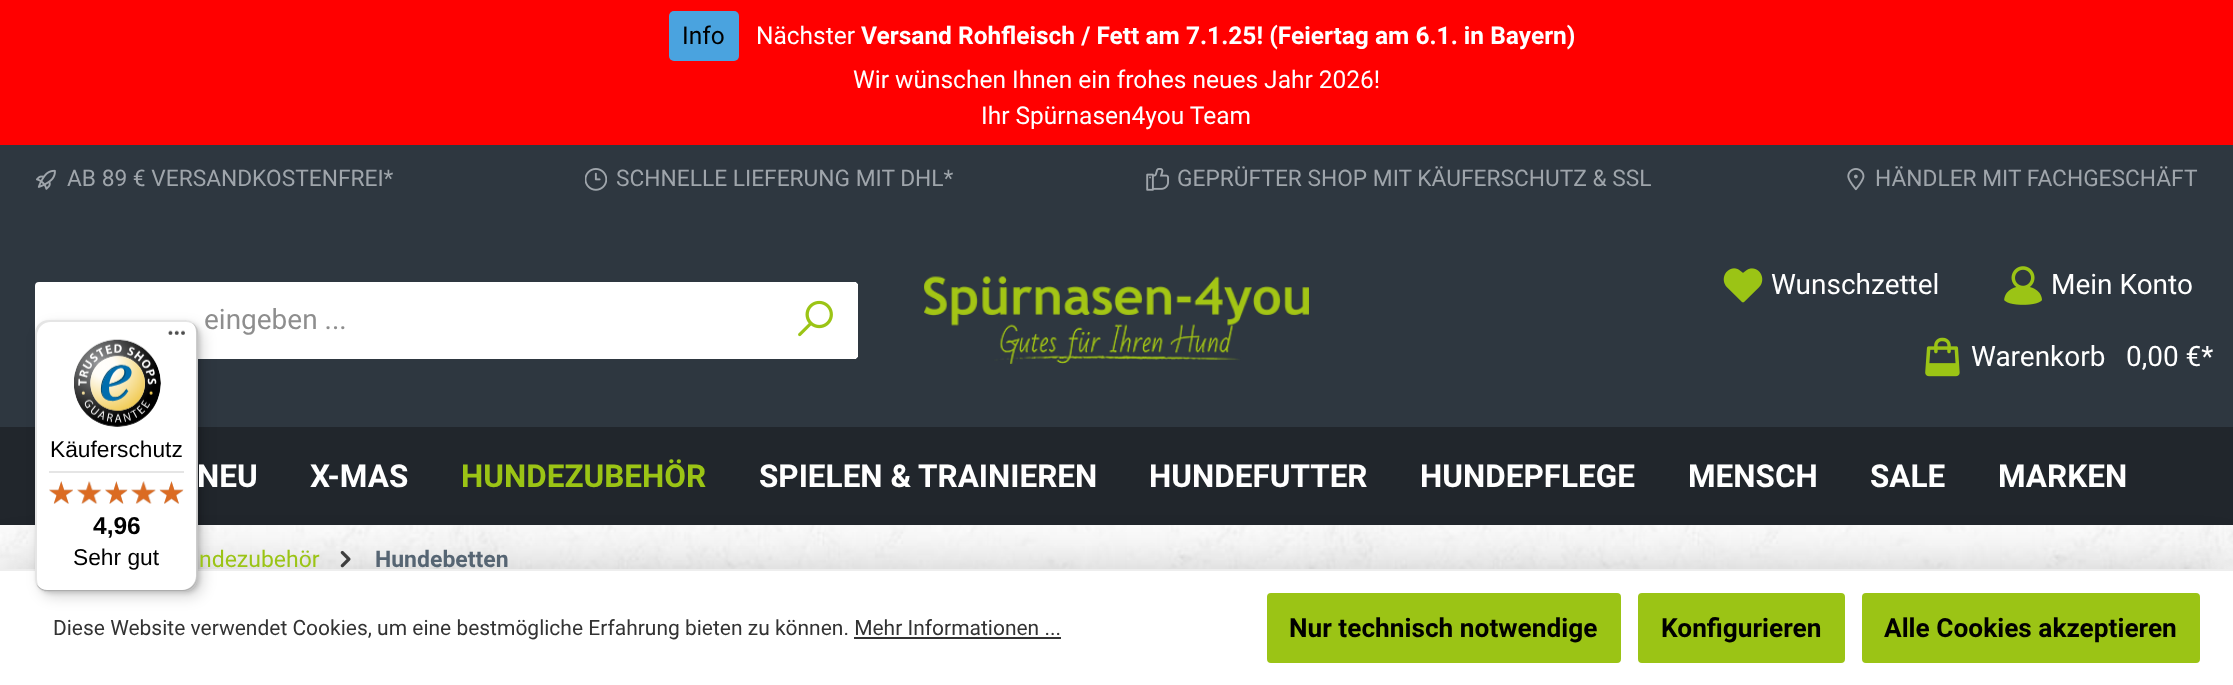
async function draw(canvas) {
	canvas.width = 2233;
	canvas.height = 685;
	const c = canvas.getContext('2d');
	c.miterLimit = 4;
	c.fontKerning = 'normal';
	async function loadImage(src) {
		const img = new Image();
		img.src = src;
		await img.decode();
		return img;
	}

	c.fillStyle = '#fff';
	c.fillRect(0, 0, 2233, 685);
	c.drawImage(await loadImage('img1.png'), 0, 525, 2233, 44);
	c.fillStyle = '#f00';
	c.fillRect(0, 0, 2233, 145);
	c.fillStyle = '#4aa3df';
	c.beginPath();
	c.roundRect(669, 11, 70, 50, 5);
	c.fill();
	c.font = '24.5px Roboto';
	c.fillStyle = '#000';
	c.fillText('Info', 682, 44);
	c.fillStyle = '#fff';
	c.fillText('Nächster', 756, 44);
	c.font = 'bold 24.5px Roboto';
	c.fillText('Versand Rohfleisch / Fett am 7.1.25! (Feiertag am 6.1. in Bayern)', 861, 44);
	c.font = '24.5px Roboto';
	c.fillText('Wir wünschen Ihnen ein frohes neues Jahr 2026!', 853, 88);
	c.fillText('Ihr Spürnasen4you Team', 981, 124);
	c.fillStyle = '#2e3740';
	c.fillRect(0, 145, 2233, 282);
	c.drawImage(await loadImage('img2.png'), 36, 169, 20, 21);
	c.font = '22.75px Roboto';
	c.fillStyle = '#9fa5ab';
	c.fillText('AB 89 € VERSANDKOSTENFREI*', 67, 186);
	c.drawImage(await loadImage('img3.png'), 585, 168, 22, 23);
	c.fillText('SCHNELLE LIEFERUNG MIT DHL*', 616, 186);
	c.drawImage(await loadImage('img4.png'), 1146, 168, 23, 23);
	c.fillText('GEPRÜFTER SHOP MIT KÄUFERSCHUTZ & SSL', 1177, 186);
	c.drawImage(await loadImage('img5.png'), 1847, 168, 18, 23);
	c.fillText('HÄNDLER MIT FACHGESCHÄFT', 1875, 186);
	c.fillStyle = '#fff';
	c.beginPath();
	c.roundRect(36, 283, 740, 75, [3, 0, 0, 3]);
	c.fill();
	c.strokeStyle = '#fff';
	c.lineWidth = 2;
	c.stroke();
	c.font = '28px Roboto';
	c.fillStyle = '#8e8e8e';
	c.fillText('eingeben ...', 204, 329);
	c.fillStyle = '#fff';
	c.beginPath();
	c.roundRect(775, 282, 83, 77, [0, 4, 4, 0]);
	c.fill();
	for (const [x, y, w, h, color] of [
		[854, 282, 2, 1, '#fff'],
		[857, 284, 1, 73, '#fff'],
		[854, 358, 2, 1, '#fff'],
	]) {
		c.fillStyle = color;
		c.fillRect(x, y, w, h);
	}
	c.drawImage(await loadImage('img6.png'), 798, 300, 35, 37);
	c.drawImage(await loadImage('img7.png'), 924, 276, 385, 88);
	c.drawImage(await loadImage('img8.png'), 1723, 268, 40, 35);
	c.fillText('Wunschzettel', 1771, 294);
	c.drawImage(await loadImage('img9.png'), 2004, 266, 38, 39);
	c.fillText('Mein Konto', 2051, 294);
	c.drawImage(await loadImage('img10.png'), 1925, 337, 35, 40);
	c.fillText('Warenkorb', 1971, 366);
	c.fillText('0,00 €*', 2126, 366);
	c.fillStyle = '#21262c';
	c.fillRect(0, 427, 2233, 98);
	c.drawImage(await loadImage('img23.png'), 340, 550, 11, 18);
	c.fillStyle = '#00000033';
	c.filter = 'blur(26px)';
	c.beginPath();
	c.rect(0, 569, 2233, 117);
	c.fill();
	c.filter = 'none';
	c.fillStyle = '#fff';
	c.fillRect(0, 571, 2233, 114);
	c.fillStyle = '#eee';
	c.fillRect(0, 569, 2233, 2);
	c.fillStyle = '#00000026';
	c.filter = 'blur(7px)';
	c.beginPath();
	c.roundRect(40, 326, 163, 271, 14);
	c.fill();
	c.filter = 'none';
	c.filter = 'blur(2px)';
	c.beginPath();
	c.roundRect(37, 322, 163, 271, 14);
	c.fill();
	c.filter = 'none';
	c.fillStyle = '#fff';
	c.beginPath();
	c.roundRect(35, 320, 163, 272, 14);
	c.fill();
	c.fillStyle = '#0000001a';
	c.beginPath();
	c.moveTo(51, 322);
	c.lineTo(186, 322);
	c.bezierCurveTo(189, 322, 193, 323, 195, 326);
	c.bezierCurveTo(193, 322, 189, 320, 184, 320);
	c.lineTo(49, 320);
	c.bezierCurveTo(41, 320, 35, 326, 35, 334);
	c.lineTo(35, 578);
	c.bezierCurveTo(35, 584, 38, 588, 43, 591);
	c.bezierCurveTo(39, 588, 37, 584, 37, 579);
	c.lineTo(37, 336);
	c.bezierCurveTo(37, 328, 43, 322, 51, 322);
	c.closePath();
	c.fill();
	c.fillStyle = '#00000033';
	c.beginPath();
	c.moveTo(37, 585);
	c.bezierCurveTo(39, 589, 44, 592, 49, 592);
	c.lineTo(184, 592);
	c.bezierCurveTo(192, 592, 198, 586, 198, 578);
	c.lineTo(198, 334);
	c.bezierCurveTo(198, 329, 196, 325, 192, 323);
	c.bezierCurveTo(195, 325, 196, 329, 196, 332);
	c.lineTo(196, 576);
	c.bezierCurveTo(196, 583, 190, 590, 182, 590);
	c.lineTo(47, 590);
	c.bezierCurveTo(43, 590, 40, 588, 37, 585);
	c.closePath();
	c.fill();
	c.fillStyle = '#32323233';
	c.beginPath();
	c.moveTo(36, 584);
	c.bezierCurveTo(39, 589, 43, 592, 49, 592);
	c.lineTo(184, 592);
	c.bezierCurveTo(192, 592, 198, 586, 198, 578);
	c.lineTo(198, 334);
	c.bezierCurveTo(198, 329, 196, 325, 192, 323);
	c.bezierCurveTo(195, 325, 197, 329, 197, 333);
	c.lineTo(197, 576);
	c.bezierCurveTo(197, 584, 190, 590, 183, 590);
	c.lineTo(48, 590);
	c.bezierCurveTo(43, 590, 39, 588, 36, 584);
	c.closePath();
	c.fill();
	c.fillStyle = '#ffffff4d';
	c.beginPath();
	c.moveTo(38, 586);
	c.bezierCurveTo(40, 590, 44, 592, 49, 592);
	c.lineTo(184, 592);
	c.bezierCurveTo(192, 592, 198, 586, 198, 578);
	c.lineTo(198, 334);
	c.bezierCurveTo(198, 329, 196, 325, 193, 323);
	c.bezierCurveTo(195, 326, 197, 329, 197, 333);
	c.lineTo(197, 577);
	c.bezierCurveTo(197, 584, 191, 591, 183, 591);
	c.lineTo(48, 591);
	c.bezierCurveTo(44, 591, 40, 589, 38, 586);
	c.closePath();
	c.fill();
	c.drawImage(await loadImage('img11.png'), 168, 330, 17, 5);
	c.drawImage(await loadImage('img12.png'), 74, 339, 87, 88);
	c.font = '22.75px Liberation Sans';
	c.fillStyle = '#000';
	c.fillText('Käuferschutz', 50, 457);
	c.fillStyle = '#e5e5e5';
	c.fillRect(49, 471, 135, 2);
	c.drawImage(await loadImage('img13.png'), 49, 481, 24, 23);
	c.drawImage(await loadImage('img14.png'), 77, 481, 24, 23);
	c.drawImage(await loadImage('img15.png'), 105, 481, 23, 23);
	c.drawImage(await loadImage('img16.png'), 131, 481, 25, 23);
	c.drawImage(await loadImage('img17.png'), 160, 481, 23, 23);
	c.drawImage(await loadImage('img18.png'), 49, 481, 24, 23);
	c.drawImage(await loadImage('img19.png'), 77, 481, 25, 23);
	c.drawImage(await loadImage('img20.png'), 105, 481, 23, 23);
	c.drawImage(await loadImage('img21.png'), 131, 481, 25, 23);
	c.drawImage(await loadImage('img22.png'), 159, 481, 25, 23);
	c.font = 'bold 24.5px Liberation Sans';
	c.fillStyle = '#000';
	c.fillText('4,96', 93, 534);
	c.font = '22.75px Liberation Sans';
	c.fillText('Sehr gut', 73, 565);
	c.font = 'bold 31.5px Roboto';
	c.fillStyle = '#fff';
	c.fillText('NEU', 197, 487);
	c.fillText('X-MAS', 310, 487);
	c.fillStyle = '#9bc415';
	c.fillText('HUNDEZUBEHÖR', 461, 487);
	c.fillStyle = '#fff';
	for (const [text, x, y] of [
		['SPIELEN & TRAINIEREN', 759, 487],
		['HUNDEFUTTER', 1149, 487],
		['HUNDEPFLEGE', 1420, 487],
		['MENSCH', 1688, 487],
		['SALE', 1870, 487],
		['MARKEN', 1998, 487],
	]) {
		c.fillText(text, x, y);
	}
	c.font = '23px Roboto';
	c.fillStyle = '#9bc415';
	c.fillText('ndezubehör', 199, 567);
	c.font = 'bold 23px Roboto';
	c.fillStyle = '#566573';
	c.fillText('Hundebetten', 375, 567);
	c.font = '21px Roboto';
	c.fillStyle = '#333';
	c.fillText('Diese Website verwendet Cookies, um eine bestmögliche Erfahrung bieten zu können. Mehr Informationen ...', 53, 635);
	c.fillRect(854, 637, 207, 2);
	c.fillStyle = '#9bc415';
	c.beginPath();
	c.roundRect(1268, 594, 352, 68, 3);
	c.fill();
	c.strokeStyle = '#9bc415';
	c.stroke();
	c.font = 'bold 26.25px Roboto';
	c.fillStyle = '#000';
	c.fillText('Nur technisch notwendige', 1289, 637);
	c.fillStyle = '#9bc415';
	c.beginPath();
	c.roundRect(1639, 594, 205, 68, 3);
	c.fill();
	c.stroke();
	c.fillStyle = '#000';
	c.fillText('Konfigurieren', 1661, 637);
	c.fillStyle = '#9bc415';
	c.beginPath();
	c.roundRect(1863, 594, 336, 68, 3);
	c.fill();
	c.stroke();
	c.fillStyle = '#000';
	c.fillText('Alle Cookies akzeptieren', 1884, 637);
}

draw(document.querySelector('canvas'));
